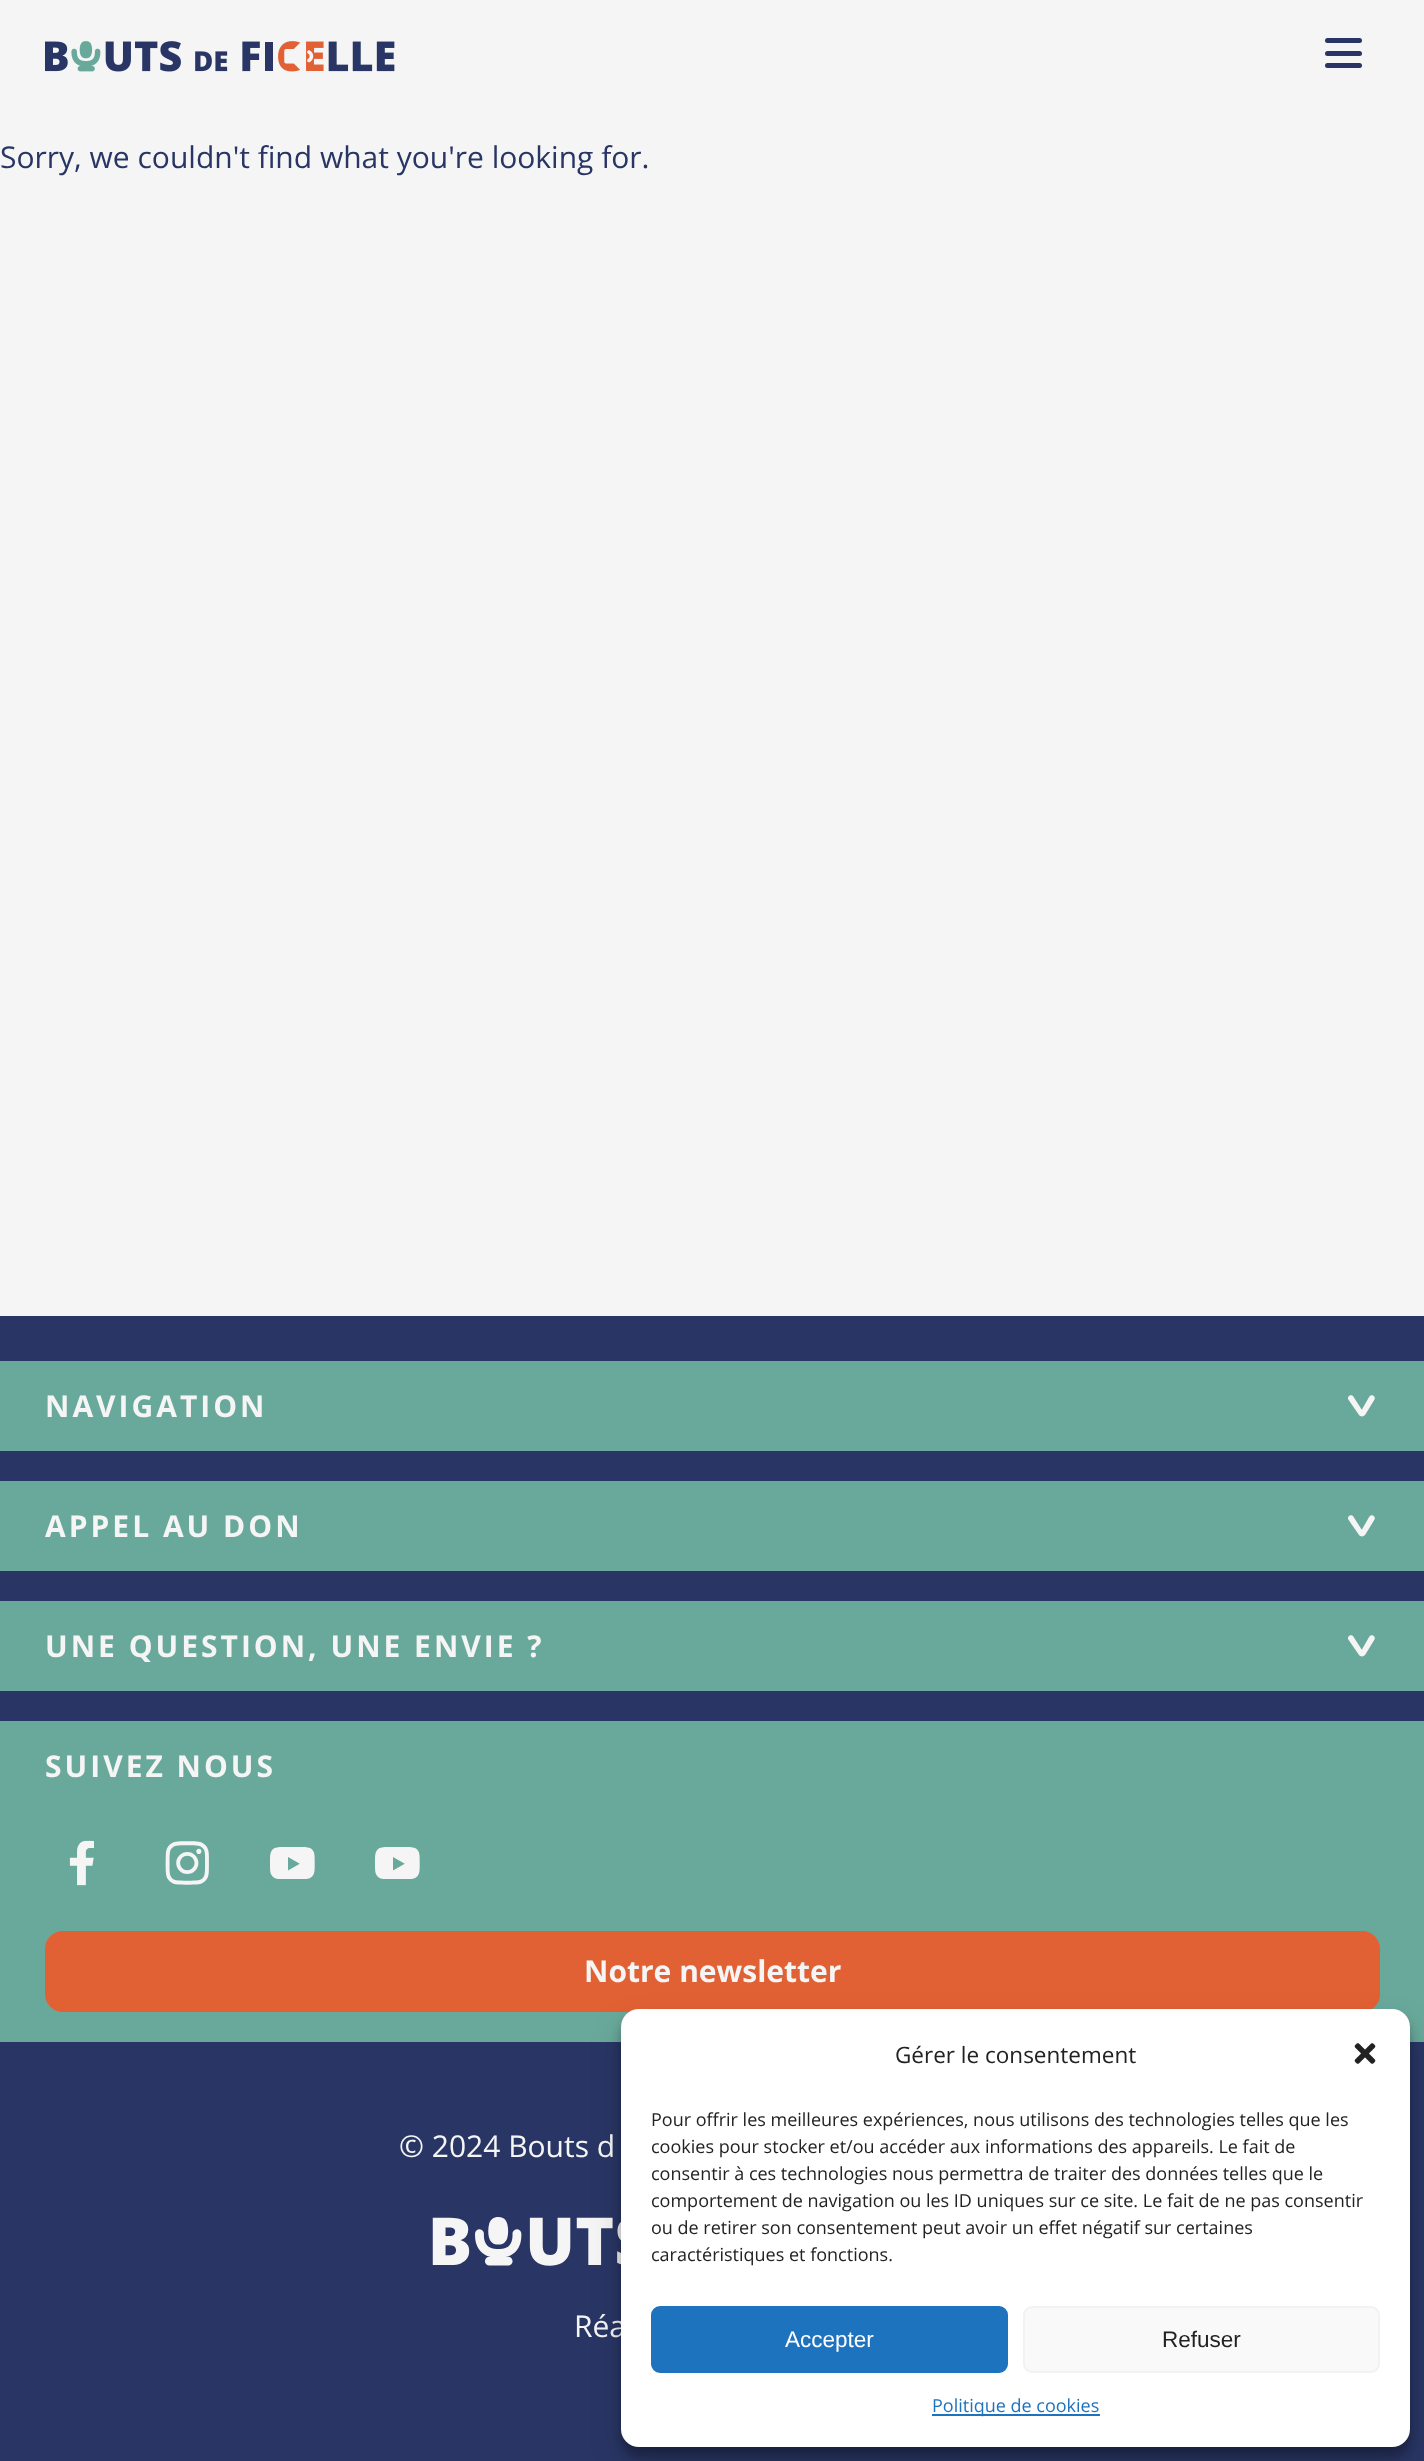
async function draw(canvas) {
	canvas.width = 1424;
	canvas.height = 2461;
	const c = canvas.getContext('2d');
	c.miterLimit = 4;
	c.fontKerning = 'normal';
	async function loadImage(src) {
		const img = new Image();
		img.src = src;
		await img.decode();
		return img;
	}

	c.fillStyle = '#f5f5f5';
	c.fillRect(0, 0, 1424, 2461);
	c.drawImage(await loadImage('img1.png'), 45, 41, 350, 31);
	c.fillStyle = '#293665';
	c.beginPath();
	c.roundRect(1325, 38, 37, 5, 2.5);
	c.fill();
	c.beginPath();
	c.roundRect(1325, 51, 37, 5, 2.5);
	c.fill();
	c.beginPath();
	c.roundRect(1325, 63, 37, 5, 2.5);
	c.fill();
	c.font = '30px Open Sans';
	c.fillText('Sorry, we couldn\'t find what you\'re looking for.', 0, 168);
	c.fillRect(0, 1316, 1424, 1145);
	c.fillStyle = '#69a99b';
	c.fillRect(0, 1361, 1424, 90);
	c.letterSpacing = '3px';
	c.font = 'bold 30px Open Sans';
	c.fillStyle = '#f5f5f5';
	c.fillText('NAVIGATION', 45, 1417);
	c.drawImage(await loadImage('img2.png'), 1348, 1395, 27, 22);
	c.fillStyle = '#69a99b';
	c.fillRect(0, 1481, 1424, 90);
	c.fillStyle = '#f5f5f5';
	c.fillText('APPEL AU DON', 45, 1537);
	c.drawImage(await loadImage('img3.png'), 1348, 1515, 27, 22);
	c.fillStyle = '#69a99b';
	c.fillRect(0, 1601, 1424, 90);
	c.fillStyle = '#f5f5f5';
	c.fillText('UNE QUESTION, UNE ENVIE ?', 45, 1657);
	c.drawImage(await loadImage('img2.png'), 1348, 1635, 27, 22);
	c.fillStyle = '#69a99b';
	c.fillRect(0, 1721, 1424, 321);
	c.fillStyle = '#f5f5f5';
	c.fillText('SUIVEZ NOUS', 45, 1777);
	c.drawImage(await loadImage('img4.png'), 69, 1840, 25, 46);
	c.drawImage(await loadImage('img5.png'), 165, 1841, 44, 44);
	c.drawImage(await loadImage('img6.png'), 270, 1847, 45, 32);
	c.drawImage(await loadImage('img6.png'), 375, 1847, 45, 32);
	c.fillStyle = '#e26134';
	c.beginPath();
	c.roundRect(47.5, 1933.5, 1330, 76, 15.5);
	c.fill();
	c.strokeStyle = '#e26134';
	c.lineWidth = 5;
	c.stroke();
	c.letterSpacing = '0px';
	c.fillStyle = '#f5f5f5';
	c.fillText('Notre newsletter', 584, 1982);
	c.font = '30px Open Sans';
	c.fillText('© 2024 Bouts d', 399, 2157);
	c.drawImage(await loadImage('img7.png'), 432, 2217, 189, 49);
	c.fillText('Réa', 574, 2337);
	c.fillStyle = '#0000003b';
	c.filter = 'blur(4.5px)';
	c.beginPath();
	c.roundRect(621, 2018, 789, 438, 18);
	c.fill();
	c.filter = 'none';
	c.fillStyle = '#00000030';
	c.filter = 'blur(15px)';
	c.beginPath();
	c.roundRect(621, 2024, 789, 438, 18);
	c.fill();
	c.filter = 'none';
	c.fillStyle = '#fff';
	c.beginPath();
	c.roundRect(621, 2009, 789, 438, 18);
	c.fill();
	c.font = '22.5px Open Sans';
	c.fillStyle = '#222';
	c.fillText('Gérer le consentement', 895, 2063);
	c.drawImage(await loadImage('img8.png'), 1354, 2043, 22, 21);
	c.font = '18px Open Sans';
	for (const [text, x, y] of [
		['Pour offrir les meilleures expériences, nous utilisons des technologies telles que les', 651, 2126],
		['cookies pour stocker et/ou accéder aux informations des appareils. Le fait de', 651, 2153],
		['consentir à ces technologies nous permettra de traiter des données telles que le', 651, 2180],
		['comportement de navigation ou les ID uniques sur ce site. Le fait de ne pas consentir', 651, 2207],
		['ou de retirer son consentement peut avoir un effet négatif sur certaines', 651, 2234],
		['caractéristiques et fonctions.', 651, 2261],
	]) {
		c.fillText(text, x, y);
	}
	c.fillStyle = '#1e73be';
	c.beginPath();
	c.roundRect(652, 2307, 355, 65, 8);
	c.fill();
	c.strokeStyle = '#1e73be';
	c.lineWidth = 2;
	c.stroke();
	c.font = '22.5px Liberation Sans';
	c.fillStyle = '#fff';
	c.fillText('Accepter', 785, 2347);
	c.fillStyle = '#f9f9f9';
	c.beginPath();
	c.roundRect(1024, 2307, 355, 65, 8);
	c.fill();
	c.strokeStyle = '#f2f2f2';
	c.stroke();
	c.fillStyle = '#222';
	c.fillText('Refuser', 1162, 2347);
	c.fillStyle = '#1e73be';
	c.fillRect(932, 2414, 168, 2);
	c.font = '18px Open Sans';
	c.fillText('Politique de cookies', 932, 2412);
}

draw(document.querySelector('canvas'));
